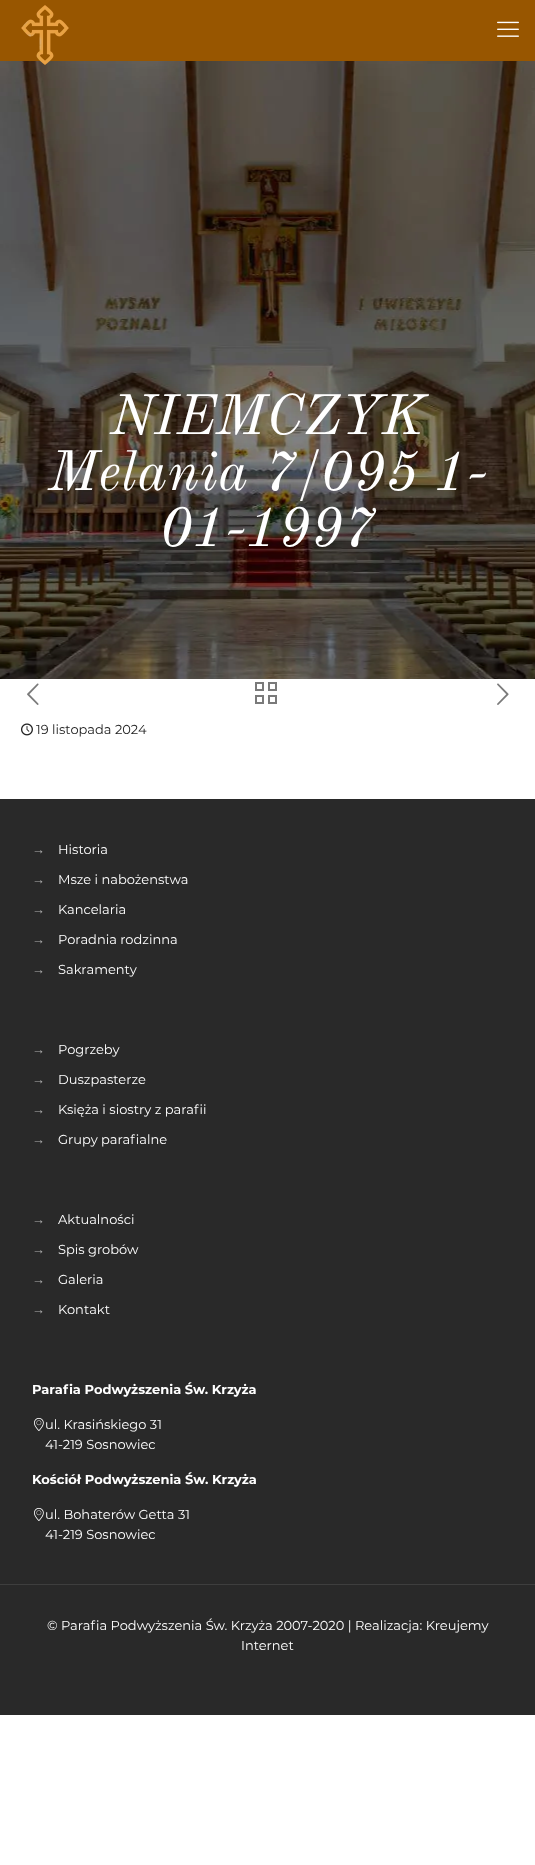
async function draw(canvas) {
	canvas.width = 535;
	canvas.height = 1865;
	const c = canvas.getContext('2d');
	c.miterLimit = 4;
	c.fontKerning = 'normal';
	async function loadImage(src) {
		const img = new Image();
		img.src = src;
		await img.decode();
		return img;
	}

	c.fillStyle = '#fff';
	c.fillRect(0, 0, 535, 1865);
	c.drawImage(await loadImage('img1.png'), 0, 61, 535, 618);
	c.fillStyle = '#985600';
	c.fillRect(0, 0, 535, 61);
	c.drawImage(await loadImage('img2.png'), 21, 5, 48, 60);
	c.drawImage(await loadImage('img3.png'), 497, 21, 22, 16);
	c.font = 'italic 56px Old Standard TT';
	c.fillStyle = '#fff';
	for (const [text, x, y] of [
		['NIEMCZYK', 110, 434],
		['Melania 7/095 1-', 48, 490],
		['01-1997', 160, 546],
	]) {
		c.fillText(text, x, y);
	}
	c.drawImage(await loadImage('img4.png'), 27, 683, 12, 22);
	c.drawImage(await loadImage('img5.png'), 255, 682, 22, 22);
	c.drawImage(await loadImage('img6.png'), 497, 683, 12, 22);
	c.drawImage(await loadImage('img7.png'), 21, 723, 12, 13);
	c.font = '13px Montserrat';
	c.fillStyle = '#222';
	c.fillText('19 listopada 2024', 36, 734);
	c.fillStyle = '#292929';
	c.fillRect(0, 799, 535, 916);
	c.font = '13px Liberation Sans';
	c.fillStyle = '#aeaeae';
	c.fillText('→', 32, 854);
	c.font = '13px Montserrat';
	c.fillStyle = '#fff';
	c.fillText('Historia', 58, 854);
	c.font = '13px Liberation Sans';
	c.fillStyle = '#aeaeae';
	c.fillText('→', 32, 884);
	c.font = '13px Montserrat';
	c.fillStyle = '#fff';
	c.fillText('Msze i nabożenstwa', 58, 884);
	c.font = '13px Liberation Sans';
	c.fillStyle = '#aeaeae';
	c.fillText('→', 32, 914);
	c.font = '13px Montserrat';
	c.fillStyle = '#fff';
	c.fillText('Kancelaria', 58, 914);
	c.font = '13px Liberation Sans';
	c.fillStyle = '#aeaeae';
	c.fillText('→', 32, 944);
	c.font = '13px Montserrat';
	c.fillStyle = '#fff';
	c.fillText('Poradnia rodzinna', 58, 944);
	c.font = '13px Liberation Sans';
	c.fillStyle = '#aeaeae';
	c.fillText('→', 32, 974);
	c.font = '13px Montserrat';
	c.fillStyle = '#fff';
	c.fillText('Sakramenty', 58, 974);
	c.font = '13px Liberation Sans';
	c.fillStyle = '#aeaeae';
	c.fillText('→', 32, 1054);
	c.font = '13px Montserrat';
	c.fillStyle = '#fff';
	c.fillText('Pogrzeby', 58, 1054);
	c.font = '13px Liberation Sans';
	c.fillStyle = '#aeaeae';
	c.fillText('→', 32, 1084);
	c.font = '13px Montserrat';
	c.fillStyle = '#fff';
	c.fillText('Duszpasterze', 58, 1084);
	c.font = '13px Liberation Sans';
	c.fillStyle = '#aeaeae';
	c.fillText('→', 32, 1114);
	c.font = '13px Montserrat';
	c.fillStyle = '#fff';
	c.fillText('Księża i siostry z parafii', 58, 1114);
	c.font = '13px Liberation Sans';
	c.fillStyle = '#aeaeae';
	c.fillText('→', 32, 1144);
	c.font = '13px Montserrat';
	c.fillStyle = '#fff';
	c.fillText('Grupy parafialne', 58, 1144);
	c.font = '13px Liberation Sans';
	c.fillStyle = '#aeaeae';
	c.fillText('→', 32, 1224);
	c.font = '13px Montserrat';
	c.fillStyle = '#fff';
	c.fillText('Aktualności', 58, 1224);
	c.font = '13px Liberation Sans';
	c.fillStyle = '#aeaeae';
	c.fillText('→', 32, 1254);
	c.font = '13px Montserrat';
	c.fillStyle = '#fff';
	c.fillText('Spis grobów', 58, 1254);
	c.font = '13px Liberation Sans';
	c.fillStyle = '#aeaeae';
	c.fillText('→', 32, 1284);
	c.font = '13px Montserrat';
	c.fillStyle = '#fff';
	c.fillText('Galeria', 58, 1284);
	c.font = '13px Liberation Sans';
	c.fillStyle = '#aeaeae';
	c.fillText('→', 32, 1314);
	c.font = '13px Montserrat';
	c.fillStyle = '#fff';
	c.fillText('Kontakt', 58, 1314);
	c.font = 'bold 13px Montserrat';
	c.fillText('Parafia Podwyższenia Św. Krzyża', 32, 1394);
	c.drawImage(await loadImage('img8.png'), 34, 1417, 10, 14);
	c.font = '13px Montserrat';
	c.fillText('ul. Krasińskiego 31', 45, 1429);
	c.fillText('41-219 Sosnowiec', 45, 1449);
	c.font = 'bold 13px Montserrat';
	c.fillText('Kościół Podwyższenia Św. Krzyża', 32, 1484);
	c.drawImage(await loadImage('img8.png'), 34, 1507, 10, 14);
	c.font = '13px Montserrat';
	c.fillText('ul. Bohaterów Getta 31', 45, 1519);
	c.fillText('41-219 Sosnowiec', 45, 1539);
	c.fillStyle = '#3e3e3e';
	c.fillRect(0, 1584, 535, 1);
	c.fillStyle = '#fff';
	c.fillText('© Parafia Podwyższenia Św. Krzyża 2007-2020 | Realizacja: Kreujemy', 47, 1630);
	c.fillText('Internet', 241, 1650);
}

draw(document.querySelector('canvas'));
